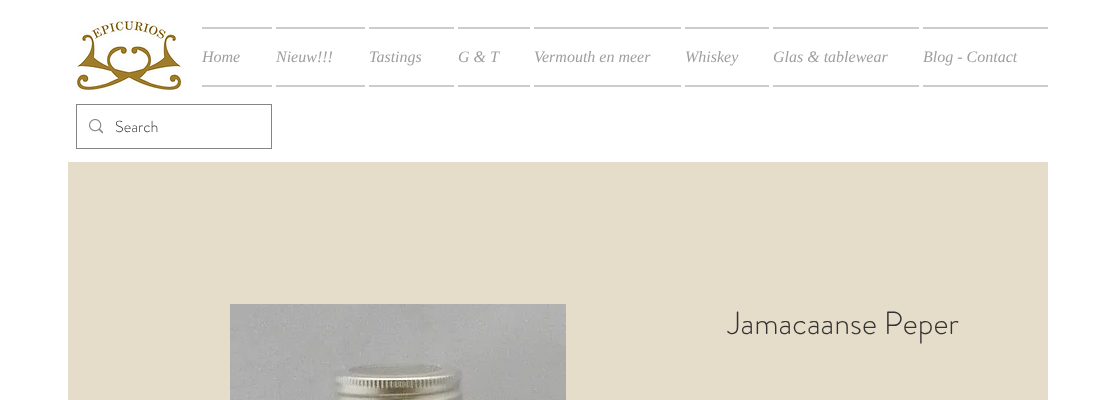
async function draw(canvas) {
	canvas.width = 1116;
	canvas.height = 400;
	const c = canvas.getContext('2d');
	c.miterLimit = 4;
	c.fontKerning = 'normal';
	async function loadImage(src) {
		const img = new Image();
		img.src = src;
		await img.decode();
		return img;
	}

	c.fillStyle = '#fff';
	c.fillRect(0, 0, 1116, 400);
	c.drawImage(await loadImage('img1.png'), 76, 18, 106, 72);
	c.fillStyle = '#ccc';
	c.fillRect(202, 27, 70, 2);
	c.fillRect(202, 85, 70, 2);
	c.font = 'italic 16px Liberation Serif';
	c.fillStyle = '#9e9e9e';
	c.fillText('Home', 202, 62);
	c.fillStyle = '#ccc';
	c.fillRect(276, 27, 89, 2);
	c.fillRect(276, 85, 89, 2);
	c.fillStyle = '#9e9e9e';
	c.fillText('Nieuw!!!', 276, 62);
	c.fillStyle = '#ccc';
	c.fillRect(369, 27, 85, 2);
	c.fillRect(369, 85, 85, 2);
	c.fillStyle = '#9e9e9e';
	c.fillText('Tastings', 369, 62);
	c.fillStyle = '#ccc';
	c.fillRect(458, 27, 72, 2);
	c.fillRect(458, 85, 72, 2);
	c.fillStyle = '#9e9e9e';
	c.fillText('G & T', 458, 62);
	c.fillStyle = '#ccc';
	c.fillRect(534, 27, 147, 2);
	c.fillRect(534, 85, 147, 2);
	c.fillStyle = '#9e9e9e';
	c.fillText('Vermouth en meer', 534, 62);
	c.fillStyle = '#ccc';
	c.fillRect(685, 27, 84, 2);
	c.fillRect(685, 85, 84, 2);
	c.fillStyle = '#9e9e9e';
	c.fillText('Whiskey', 685, 62);
	c.fillStyle = '#ccc';
	c.fillRect(773, 27, 146, 2);
	c.fillRect(773, 85, 146, 2);
	c.fillStyle = '#9e9e9e';
	c.fillText('Glas & tablewear', 773, 62);
	c.fillStyle = '#ccc';
	c.fillRect(923, 27, 125, 2);
	c.fillRect(923, 85, 125, 2);
	c.fillStyle = '#9e9e9e';
	c.fillText('Blog - Contact', 923, 62);
	c.strokeStyle = '#858585';
	c.strokeRect(76.5, 104.5, 195, 44);
	c.drawImage(await loadImage('img2.png'), 89, 119, 14, 15);
	c.font = '300 16px "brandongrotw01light"';
	c.fillStyle = '#333';
	c.fillText('Search', 115, 132);
	c.fillStyle = '#e5ddca';
	c.fillRect(68, 162, 980, 238);
	c.drawImage(await loadImage('img3.png'), 230, 304, 336, 96);
	c.font = '300 32px "brandongrotw01light"';
	c.fillStyle = '#333';
	c.fillText('Jamacaanse Peper', 728, 334);
}

draw(document.querySelector('canvas'));
